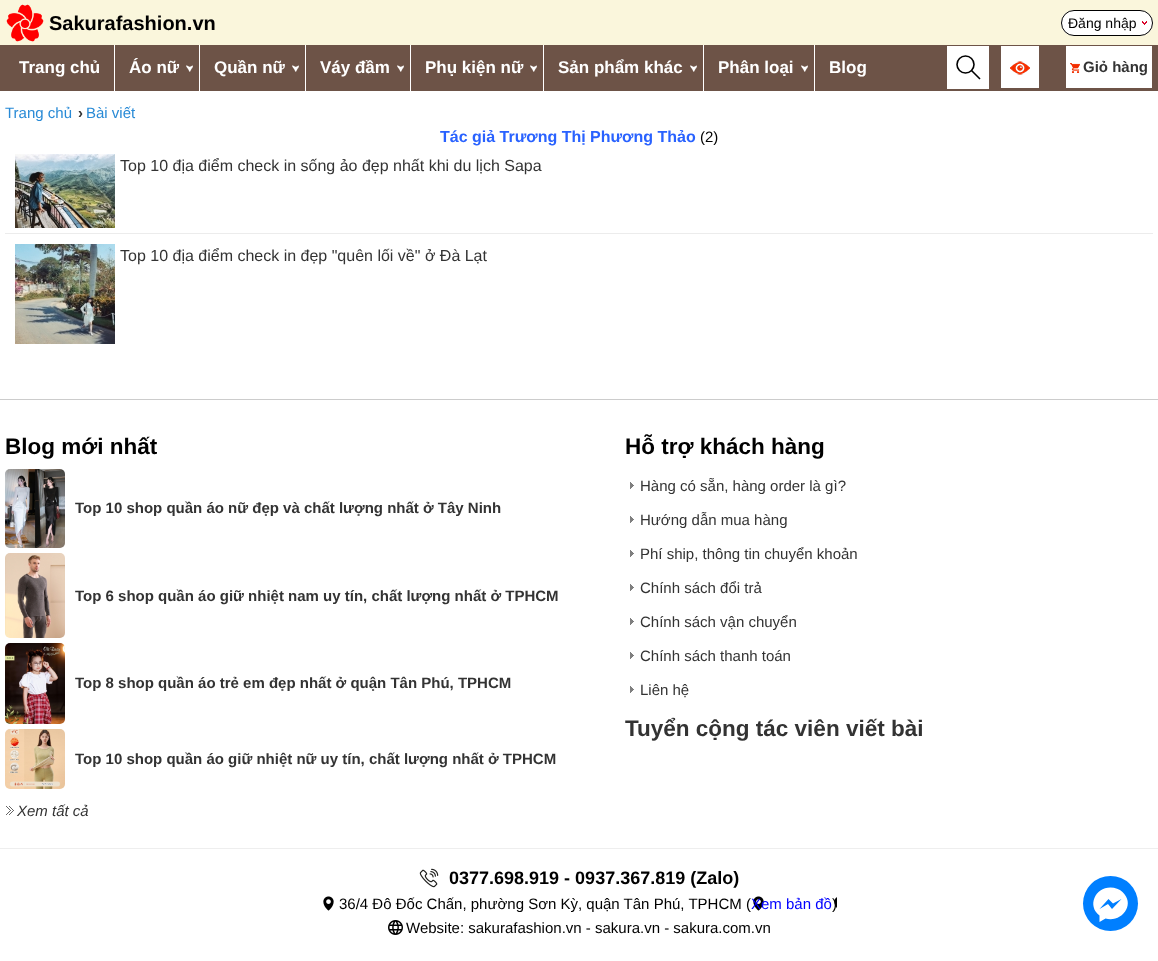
async function draw(canvas) {
	canvas.width = 1158;
	canvas.height = 961;
	const c = canvas.getContext('2d');
	c.miterLimit = 4;
	c.fontKerning = 'normal';
	async function loadImage(src) {
		const img = new Image();
		img.src = src;
		await img.decode();
		return img;
	}

	c.fillStyle = '#fff';
	c.fillRect(0, 0, 1158, 961);
	c.fillStyle = '#faf6dc';
	c.fillRect(0, 0, 1158, 45);
	c.drawImage(await loadImage('img1.png'), 6, 4, 38, 38);
	c.font = 'bold 20px Liberation Sans';
	c.fillStyle = '#000';
	c.fillText('Sakurafashion.vn', 49, 30);
	c.fillStyle = '#fff';
	c.beginPath();
	c.roundRect(1061, 10, 92, 26, 13);
	c.fill();
	c.drawImage(await loadImage('img2.png'), 1142, 21, 5, 4);
	c.beginPath();
	c.roundRect(1061.5, 10.5, 91, 25, 12.5);
	c.strokeStyle = '#000';
	c.stroke();
	c.font = '14px Liberation Sans';
	c.fillStyle = '#000';
	c.fillText('Đăng nhập', 1068, 28);
	c.fillStyle = '#6d5347';
	c.fillRect(0, 45, 1158, 46);
	c.font = 'bold 17px Liberation Sans';
	c.fillStyle = '#fff';
	c.fillText('Trang chủ', 19, 73);
	c.fillRect(114, 45, 1, 46);
	c.fillText('Áo nữ', 129, 73);
	c.drawImage(await loadImage('img3.png'), 186, 65, 7, 7);
	c.fillRect(199, 45, 1, 46);
	c.fillText('Quần nữ', 214, 73);
	c.drawImage(await loadImage('img3.png'), 292, 65, 7, 7);
	c.fillRect(305, 45, 1, 46);
	c.fillText('Váy đầm', 320, 73);
	c.drawImage(await loadImage('img3.png'), 397, 65, 7, 7);
	c.fillRect(410, 45, 1, 46);
	c.fillText('Phụ kiện nữ', 425, 73);
	c.drawImage(await loadImage('img3.png'), 530, 65, 7, 7);
	c.fillRect(543, 45, 1, 46);
	c.fillText('Sản phẩm khác', 558, 73);
	c.drawImage(await loadImage('img3.png'), 690, 65, 7, 7);
	c.fillRect(703, 45, 1, 46);
	c.fillText('Phân loại', 718, 73);
	c.drawImage(await loadImage('img3.png'), 801, 65, 7, 7);
	c.fillRect(814, 45, 1, 46);
	c.fillText('Blog', 829, 73);
	c.fillRect(947, 46, 42, 43);
	c.beginPath();
	c.arc(965.5, 64.5, 8.5, 0, 2 * Math.PI);
	c.lineWidth = 1.6;
	c.stroke();
	c.beginPath();
	c.moveTo(971.5, 70.5);
	c.lineTo(980, 79);
	c.lineJoin = 'round';
	c.stroke();
	c.fillRect(1001, 46, 38, 42);
	c.drawImage(await loadImage('img4.png'), 1010, 61, 20, 14);
	c.fillRect(1066, 46, 86, 42);
	c.drawImage(await loadImage('img5.png'), 1070, 63, 10, 10);
	c.font = 'bold 15px Liberation Sans';
	c.fillStyle = '#333';
	c.fillText('Giỏ hàng', 1083, 72);
	c.font = '15px Liberation Sans';
	c.fillStyle = '#288ad6';
	c.fillText('Trang chủ', 5, 118);
	c.font = 'bold 15px Liberation Sans';
	c.fillStyle = '#333';
	c.fillText('›', 78, 118);
	c.font = '15px Liberation Sans';
	c.fillStyle = '#288ad6';
	c.fillText('Bài viết', 86, 118);
	c.font = 'bold 16px Liberation Sans';
	c.fillStyle = '#2962ff';
	c.fillText('Tác giả Trương Thị Phương Thảo', 440, 142);
	c.font = '15px Liberation Sans';
	c.fillStyle = '#000';
	c.fillText('(2)', 700, 142);
	c.fillStyle = '#ececec';
	c.fillRect(5, 233, 1148, 1);
	c.drawImage(await loadImage('img6.png'), 15, 154, 100, 74);
	c.font = '16px Liberation Sans';
	c.fillStyle = '#333';
	c.fillText('Top 10 địa điểm check in sống ảo đẹp nhất khi du lịch Sapa', 120, 171);
	c.drawImage(await loadImage('img7.png'), 15, 244, 100, 100);
	c.fillText('Top 10 địa điểm check in đẹp "quên lối về" ở Đà Lạt', 120, 261);
	c.fillStyle = '#ccc';
	c.fillRect(0, 399, 1158, 1);
	c.font = 'bold 22.5px Liberation Sans';
	c.fillStyle = '#000';
	c.fillText('Blog mới nhất', 5, 454);
	c.drawImage(await loadImage('img8.png'), 5, 469, 60, 79);
	c.font = 'bold 15px Liberation Sans';
	c.fillStyle = '#333';
	c.fillText('Top 10 shop quần áo nữ đẹp và chất lượng nhất ở Tây Ninh', 75, 513);
	c.drawImage(await loadImage('img9.png'), 5, 553, 60, 85);
	c.fillText('Top 6 shop quần áo giữ nhiệt nam uy tín, chất lượng nhất ở TPHCM', 75, 601);
	c.drawImage(await loadImage('img10.png'), 5, 643, 60, 81);
	c.fillText('Top 8 shop quần áo trẻ em đẹp nhất ở quận Tân Phú, TPHCM', 75, 688);
	c.drawImage(await loadImage('img11.png'), 5, 729, 60, 60);
	c.fillText('Top 10 shop quần áo giữ nhiệt nữ uy tín, chất lượng nhất ở TPHCM', 75, 764);
	c.drawImage(await loadImage('img12.png'), 6, 806, 8, 9);
	c.font = 'italic 15px Liberation Sans';
	c.fillText('Xem tất cả', 17, 816);
	c.font = 'bold 22.5px Liberation Sans';
	c.fillStyle = '#000';
	c.fillText('Hỗ trợ khách hàng', 625, 454);
	c.drawImage(await loadImage('img13.png'), 630, 482, 4, 7);
	c.font = '15px Liberation Sans';
	c.fillStyle = '#333';
	c.fillText('Hàng có sẵn, hàng order là gì?', 640, 491);
	c.drawImage(await loadImage('img13.png'), 630, 516, 4, 7);
	c.fillText('Hướng dẫn mua hàng', 640, 525);
	c.drawImage(await loadImage('img13.png'), 630, 550, 4, 7);
	c.fillText('Phí ship, thông tin chuyển khoản', 640, 559);
	c.drawImage(await loadImage('img13.png'), 630, 584, 4, 7);
	c.fillText('Chính sách đổi trả', 640, 593);
	c.drawImage(await loadImage('img13.png'), 630, 618, 4, 7);
	c.fillText('Chính sách vận chuyển', 640, 627);
	c.drawImage(await loadImage('img13.png'), 630, 652, 4, 7);
	c.fillText('Chính sách thanh toán', 640, 661);
	c.drawImage(await loadImage('img13.png'), 630, 686, 4, 7);
	c.fillText('Liên hệ', 640, 695);
	c.font = 'bold 22.5px Liberation Sans';
	c.fillText('Tuyển cộng tác viên viết bài', 625, 736);
	c.fillStyle = '#eee';
	c.fillRect(0, 848, 1158, 1);
	c.drawImage(await loadImage('img14.png'), 419, 868, 20, 20);
	c.font = 'bold 18px Liberation Sans';
	c.fillStyle = '#000';
	c.fillText('0377.698.919 - 0937.367.819 (Zalo)', 449, 884);
	c.drawImage(await loadImage('img15.png'), 323, 896, 514, 15);
	c.font = '15px Liberation Sans';
	c.fillText('36/4 Đô Đốc Chấn, phường Sơn Kỳ, quận Tân Phú, TPHCM (', 339, 909);
	c.fillStyle = '#00f';
	c.fillText('Xem bản đồ', 751, 909);
	c.fillStyle = '#000';
	c.fillText(')', 832, 909);
	c.drawImage(await loadImage('img16.png'), 388, 920, 15, 15);
	c.fillText('Website: sakurafashion.vn - sakura.vn - sakura.com.vn', 406, 933);
	c.fillStyle = '#007fff';
	c.beginPath();
	c.arc(1110.5, 903.5, 27.5, 0, 2 * Math.PI);
	c.fill();
	c.fillStyle = '#fff';
	c.beginPath();
	c.moveTo(1112, 909);
	c.lineTo(1108, 904);
	c.lineTo(1099.5, 909);
	c.lineTo(1108.5, 899);
	c.lineTo(1113, 903.5);
	c.lineTo(1121.5, 899);
	c.closePath();
	c.moveTo(1110.5, 887.5);
	c.bezierCurveTo(1095, 887.5, 1087, 906, 1099.5, 915.5);
	c.lineTo(1099.5, 922);
	c.lineTo(1105.5, 918.5);
	c.bezierCurveTo(1121.5, 923, 1136, 904.5, 1122.5, 892);
	c.bezierCurveTo(1119.5, 889, 1115, 887.5, 1110.5, 887.5);
	c.closePath();
	c.fill();
}

draw(document.querySelector('canvas'));
